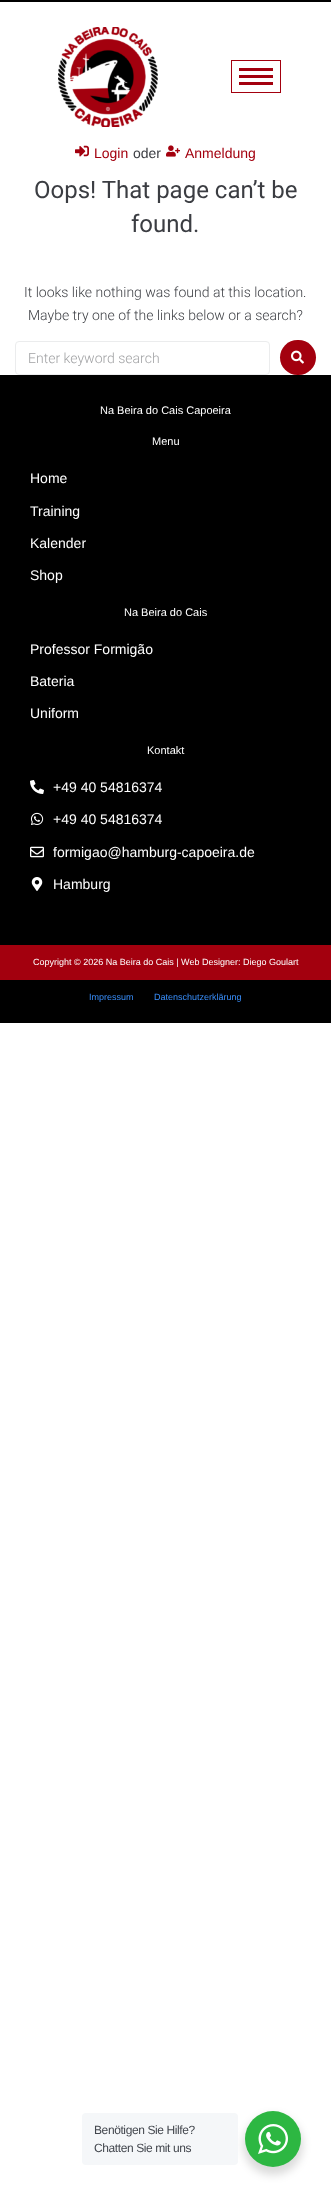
async function draw(canvas) {
	canvas.width = 331;
	canvas.height = 2197;
	const c = canvas.getContext('2d');
	c.miterLimit = 4;
	c.fontKerning = 'normal';
	async function loadImage(src) {
		const img = new Image();
		img.src = src;
		await img.decode();
		return img;
	}

	c.fillStyle = '#fff';
	c.fillRect(0, 0, 331, 2197);
	c.fillStyle = '#000';
	c.fillRect(0, 0, 331, 2);
	c.drawImage(await loadImage('img1.png'), 58, 27, 100, 100);
	c.strokeStyle = '#a3000e';
	c.strokeRect(231.5, 60.5, 49, 32);
	for (const [x, y, w, h, color] of [
		[239, 68, 34, 3, '#a3000e'],
		[239, 75, 34, 3, '#a3000e'],
		[239, 82, 34, 3, '#a3000e'],
	]) {
		c.fillStyle = color;
		c.fillRect(x, y, w, h);
	}
	c.drawImage(await loadImage('img2.png'), 75, 145, 14, 12);
	c.font = '14px Liberation Sans';
	c.fillText('Login', 94, 158);
	c.fillStyle = '#3b3d42';
	c.fillText('oder', 133, 158);
	c.drawImage(await loadImage('img3.png'), 166, 145, 14, 12);
	c.fillStyle = '#a3000e';
	c.fillText('Anmeldung', 185, 158);
	c.font = '24px Roboto';
	c.fillStyle = '#3b3d42';
	c.fillText('Oops! That page can’t be', 34, 198);
	c.fillText('found.', 131, 232);
	c.font = '300 14px Roboto';
	c.fillText('It looks like nothing was found at this location.', 24, 297);
	c.fillText('Maybe try one of the links below or a search?', 28, 320);
	c.beginPath();
	c.roundRect(15.5, 341.5, 254, 33, 3.5);
	c.strokeStyle = '#ebeced';
	c.stroke();
	c.fillStyle = '#a1a2a4';
	c.fillText('Enter keyword search', 28, 363);
	c.fillStyle = '#a3000e';
	c.beginPath();
	c.roundRect(280, 340, 36, 35, 17.5);
	c.fill();
	c.drawImage(await loadImage('img4.png'), 291, 350, 13, 14);
	c.fillStyle = '#000';
	c.fillRect(0, 375, 331, 570);
	c.font = '11px Liberation Sans';
	c.fillStyle = '#fff';
	c.fillText('Na Beira do Cais Capoeira', 100, 414);
	c.fillText('Menu', 152, 445);
	c.font = '14px Liberation Sans';
	for (const [text, x, y] of [
		['Home', 30, 483],
		['Training', 30, 516],
		['Kalender', 30, 548],
		['Shop', 30, 580],
	]) {
		c.fillText(text, x, y);
	}
	c.font = '11px Liberation Sans';
	c.fillText('Na Beira do Cais', 124, 616);
	c.font = '14px Liberation Sans';
	for (const [text, x, y] of [
		['Professor Formigão', 30, 654],
		['Bateria', 30, 686],
		['Uniform', 30, 718],
	]) {
		c.fillText(text, x, y);
	}
	c.font = '11px Liberation Sans';
	c.fillText('Kontakt', 147, 754);
	c.drawImage(await loadImage('img5.png'), 30, 780, 14, 14);
	c.font = '14px Liberation Sans';
	c.fillText('+49 40 54816374', 53, 792);
	c.drawImage(await loadImage('img6.png'), 30, 812, 14, 13);
	c.fillText('+49 40 54816374', 53, 824);
	c.drawImage(await loadImage('img7.png'), 30, 846, 14, 12);
	c.fillText('formigao@hamburg-capoeira.de', 53, 857);
	c.drawImage(await loadImage('img8.png'), 31, 877, 12, 14);
	c.fillText('Hamburg', 53, 889);
	c.fillStyle = '#a3000e';
	c.fillRect(0, 945, 331, 35);
	c.font = '9px Liberation Sans';
	c.fillStyle = '#fff';
	c.fillText('Copyright © 2026 Na Beira do Cais | Web Designer: Diego Goulart', 33, 965);
	c.fillStyle = '#000';
	c.fillRect(0, 980, 331, 43);
	c.fillStyle = '#398ffc';
	c.fillText('Impressum', 89, 1000);
	c.fillText('Datenschutzerklärung', 154, 1000);
	c.fillStyle = '#00000024';
	c.filter = 'blur(4px)';
	c.beginPath();
	c.roundRect(243, 2115, 60, 60, 30);
	c.fill();
	c.filter = 'none';
	c.fillStyle = '#f5f7f9';
	c.beginPath();
	c.roundRect(82, 2113, 156, 52, 4);
	c.fill();
	c.letterSpacing = '-0.4px';
	c.font = '12px Liberation Sans';
	c.fillStyle = '#43474e';
	c.fillText('Benötigen Sie Hilfe?', 94, 2134);
	c.fillText('Chatten Sie mit uns', 94, 2152);
	c.fillStyle = '#2db742';
	c.beginPath();
	c.arc(273, 2139, 28, 0, 2 * Math.PI);
	c.fill();
	c.drawImage(await loadImage('img9.png'), 258, 2124, 30, 30);
}

draw(document.querySelector('canvas'));
